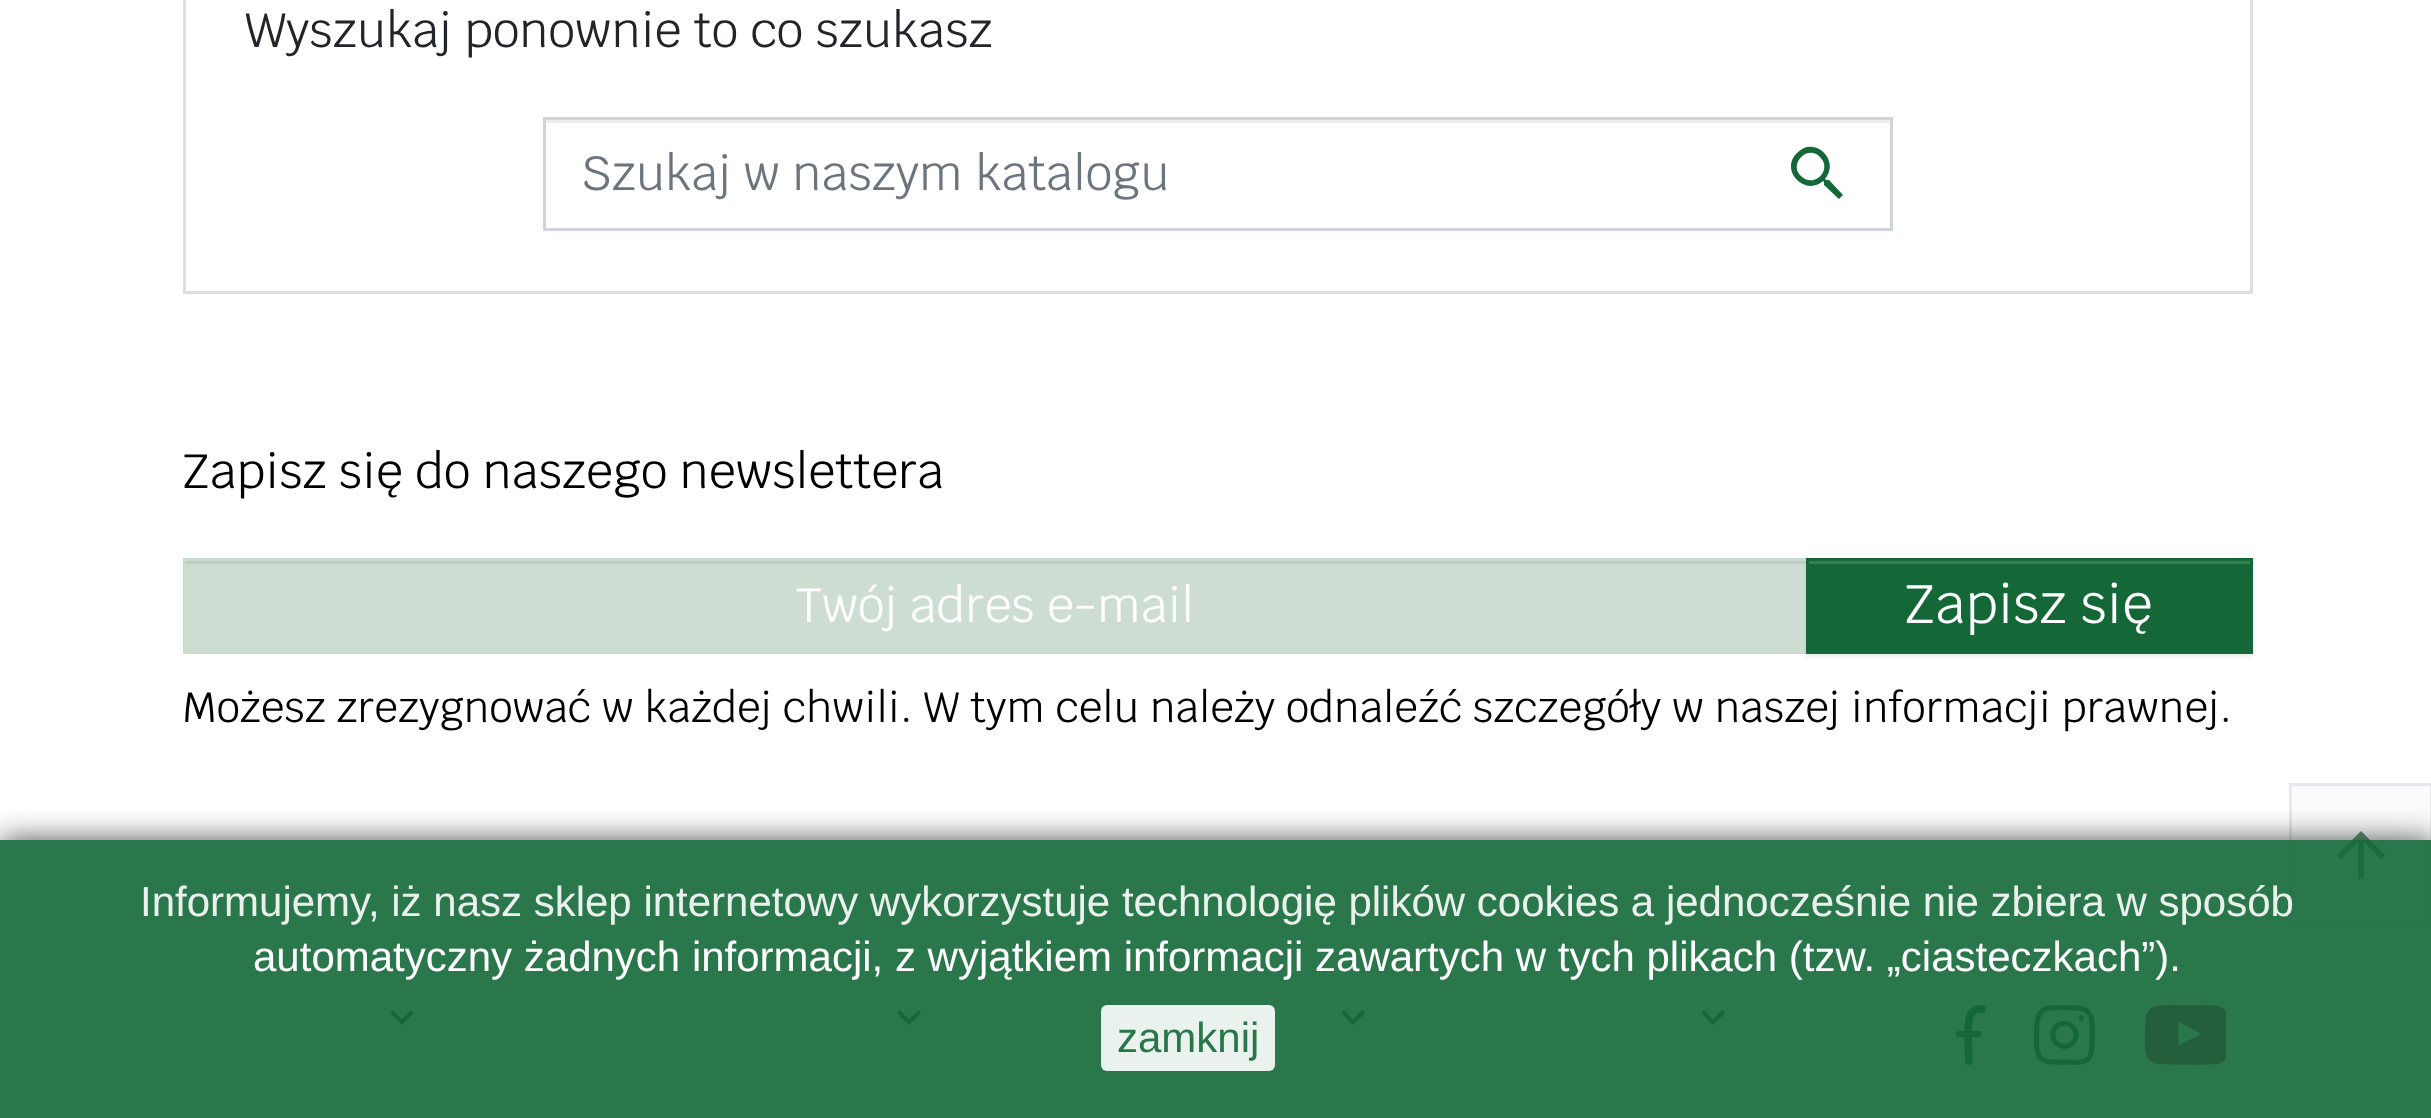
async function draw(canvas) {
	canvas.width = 2431;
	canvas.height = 1118;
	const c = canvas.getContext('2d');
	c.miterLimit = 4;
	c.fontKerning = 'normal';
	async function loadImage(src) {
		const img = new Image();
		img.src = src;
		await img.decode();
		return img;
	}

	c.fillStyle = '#fff';
	c.fillRect(0, 0, 2431, 1118);
	c.strokeStyle = '#dfdfdf';
	c.lineWidth = 3;
	c.strokeRect(184.5, -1.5, 2067, 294);
	c.font = '48px Krub';
	c.fillStyle = '#212529';
	c.fillText('Wyszukaj ponownie to co szukasz', 245, 47);
	c.fillStyle = '#ececec';
	c.fillRect(546, 120, 1344, 3);
	c.strokeStyle = '#ced4da';
	c.strokeRect(544.5, 118.5, 1347, 111);
	c.fillStyle = '#6c757d';
	c.fillText('Szukaj w naszym katalogu', 581, 190);
	c.fillStyle = '#146838';
	c.beginPath();
	c.moveTo(1801, 176);
	c.bezierCurveTo(1814, 189, 1833, 170, 1820, 157);
	c.bezierCurveTo(1808, 144, 1788, 164, 1801, 176);
	c.closePath();
	c.moveTo(1829, 180);
	c.lineTo(1843, 195);
	c.lineTo(1839, 199);
	c.lineTo(1824, 185);
	c.lineTo(1824, 182);
	c.lineTo(1823, 181);
	c.bezierCurveTo(1805, 197, 1779, 170, 1797, 153);
	c.bezierCurveTo(1814, 135, 1841, 160, 1825, 179);
	c.lineTo(1826, 180);
	c.closePath();
	c.fill();
	c.fillStyle = '#000';
	c.fillText('Zapisz się do naszego newslettera', 182, 488);
	c.fillStyle = '#cdddd2';
	c.fillRect(186, 564, 1620, 87);
	c.fillStyle = '#beccc2';
	c.fillRect(186, 561, 1620, 3);
	c.strokeStyle = '#cadcd0';
	c.strokeRect(184.5, 559.5, 1623, 93);
	c.fillStyle = '#fff';
	c.fillText('Twój adres e-mail', 796, 622);
	c.fillStyle = '#00000012';
	c.filter = 'blur(1.5px)';
	c.beginPath();
	c.rect(1806, 561, 447, 96);
	c.fill();
	c.filter = 'none';
	c.fillStyle = '#146838';
	c.fillRect(1806, 558, 447, 96);
	c.fillStyle = '#377f56';
	c.fillRect(1809, 561, 441, 3);
	c.font = '54px Krub';
	c.fillStyle = '#fff';
	c.fillText('Zapisz się', 1904, 623);
	c.font = '42px Krub';
	c.fillStyle = '#000';
	c.fillText('Możesz zrezygnować w każdej chwili. W tym celu należy odnaleźć szczegóły w naszej informacji prawnej.', 182, 722);
	c.fillStyle = '#fafbfb';
	c.beginPath();
	c.rect(2290.5, 784.5, 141, 141);
	c.fill();
	c.strokeStyle = '#e3e8ec';
	c.stroke();
	c.fillStyle = '#4f8e6a';
	c.beginPath();
	c.moveTo(2337, 855);
	c.lineTo(2361, 831);
	c.lineTo(2385, 855);
	c.lineTo(2381, 859);
	c.lineTo(2364, 842);
	c.lineTo(2364, 879);
	c.lineTo(2358, 879);
	c.lineTo(2358, 842);
	c.lineTo(2341, 859);
	c.closePath();
	c.fill();
	c.fillStyle = '#146838';
	c.beginPath();
	c.moveTo(393, 1010);
	c.lineTo(402, 1019.5);
	c.lineTo(411, 1010);
	c.lineTo(414, 1013);
	c.lineTo(402, 1025);
	c.lineTo(390, 1013);
	c.closePath();
	c.fill();
	c.beginPath();
	c.moveTo(900, 1010);
	c.lineTo(909, 1019.5);
	c.lineTo(918, 1010);
	c.lineTo(921, 1013);
	c.lineTo(909, 1025);
	c.lineTo(897, 1013);
	c.closePath();
	c.fill();
	c.beginPath();
	c.moveTo(1344, 1010);
	c.lineTo(1353, 1019.5);
	c.lineTo(1362, 1010);
	c.lineTo(1365, 1013);
	c.lineTo(1353, 1025);
	c.lineTo(1341, 1013);
	c.closePath();
	c.fill();
	c.beginPath();
	c.moveTo(1704, 1010);
	c.lineTo(1713, 1019.5);
	c.lineTo(1722, 1010);
	c.lineTo(1725, 1013);
	c.lineTo(1713, 1025);
	c.lineTo(1701, 1013);
	c.closePath();
	c.fill();
	c.beginPath();
	c.moveTo(1982, 1009);
	c.bezierCurveTo(1977.5, 1008.5, 1972.5, 1010.5, 1970.5, 1014.5);
	c.bezierCurveTo(1966.5, 1022, 1968.5, 1051.5, 1969, 1061);
	c.strokeStyle = '#146838';
	c.lineWidth = 7.7;
	c.lineCap = 'round';
	c.lineJoin = 'round';
	c.stroke();
	c.beginPath();
	c.moveTo(1959, 1034);
	c.lineTo(1979, 1034);
	c.lineWidth = 5.8;
	c.stroke();
	c.drawImage(await loadImage('img1.png'), 2034, 1005, 61, 60);
	c.drawImage(await loadImage('img2.png'), 2145, 1005, 81, 60);
	c.save();
	c.beginPath();
	c.rect(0, 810, 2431, 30);
	c.clip();
	c.fillStyle = '#383838e6';
	c.filter = 'blur(15px)';
	c.beginPath();
	c.rect(0, 840, 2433, 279);
	c.fill();
	c.filter = 'none';
	c.restore();
	c.fillStyle = '#146838e6';
	c.fillRect(0, 840, 2431, 278);
	c.font = '42px Liberation Sans';
	c.fillStyle = '#eaf1ed';
	c.fillText('Informujemy, iż nasz sklep internetowy wykorzystuje technologię plików cookies a jednocześnie nie zbiera w sposób', 140, 916);
	c.fillStyle = '#fff';
	c.fillText('automatyczny żadnych informacji, z wyjątkiem informacji zawartych w tych plikach (tzw. „ciasteczkach”).', 253, 971);
	c.fillStyle = '#ffffffe6';
	c.beginPath();
	c.roundRect(1101, 1005, 174, 66, 6);
	c.fill();
	c.fillStyle = '#29764a';
	c.fillText('zamknij', 1117, 1052);
}

draw(document.querySelector('canvas'));
